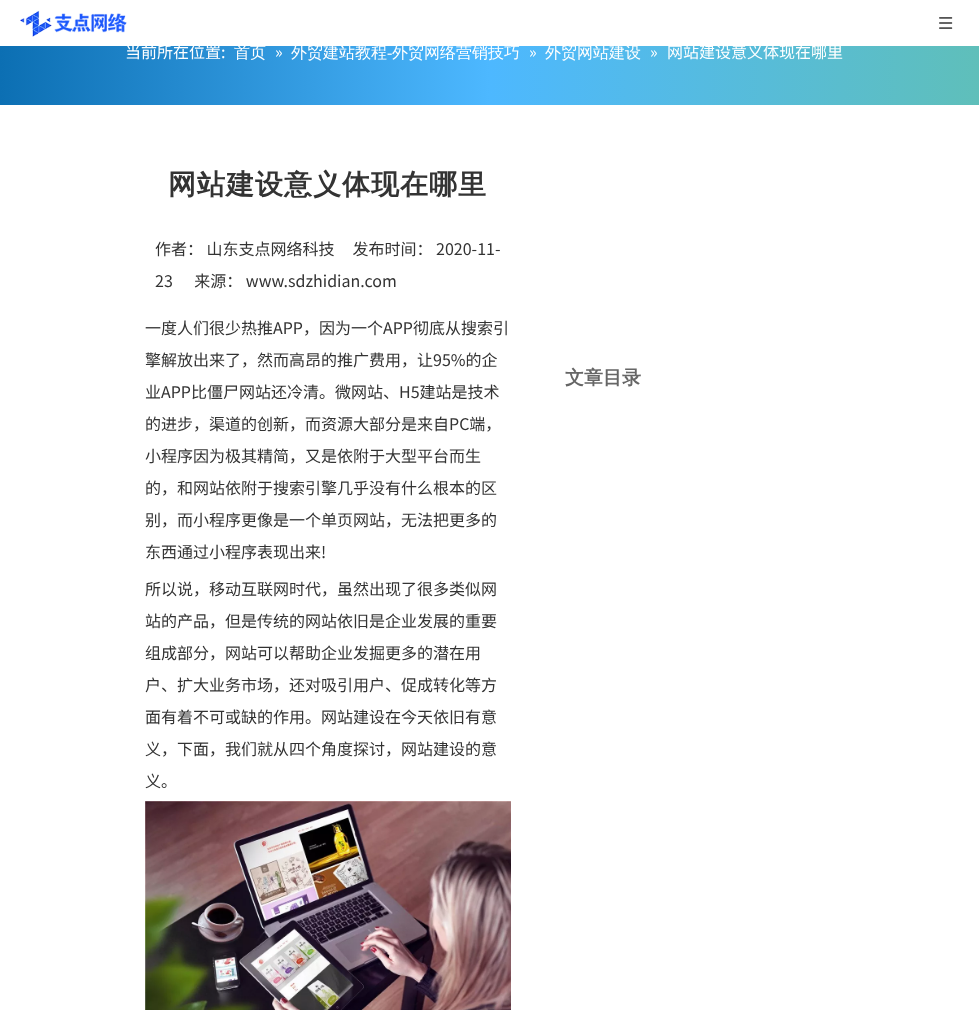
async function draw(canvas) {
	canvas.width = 979;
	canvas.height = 1010;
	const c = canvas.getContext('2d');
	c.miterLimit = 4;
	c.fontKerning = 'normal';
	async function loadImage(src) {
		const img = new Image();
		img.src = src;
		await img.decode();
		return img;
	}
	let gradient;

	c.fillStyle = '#fff';
	c.fillRect(0, 0, 979, 1010);
	c.drawImage(await loadImage('img1.png'), 20, 10, 107, 27);
	c.drawImage(await loadImage('img2.png'), 939, 17, 14, 12);
	gradient = c.createLinearGradient(0, 53, 979, 52);
	gradient.addColorStop(0, '#0c6fb3');
	gradient.addColorStop(0.5, '#4db8ff');
	gradient.addColorStop(1, '#5fbfba');
	c.fillStyle = gradient;
	c.fillRect(0, 46, 979, 59);
	c.font = '16px Noto Sans SC';
	c.fillStyle = '#fff';
	c.fillText('当前所在位置:', 125, 58);
	c.font = '500 16px WenQuanYi Zen Hei';
	c.fillText('首页', 234, 58);
	c.font = '16px Noto Sans SC';
	c.fillText('»', 275, 58);
	c.font = '500 16px WenQuanYi Zen Hei';
	c.fillText('外贸建站教程', 291, 58);
	c.font = '16px Liberation Serif';
	c.fillText('-', 387, 58);
	c.font = '500 16px WenQuanYi Zen Hei';
	c.fillText('外贸网络营销技巧', 392, 58);
	c.font = '16px Noto Sans SC';
	c.fillText('»', 529, 58);
	c.font = '500 16px WenQuanYi Zen Hei';
	c.fillText('外贸网站建设', 545, 58);
	c.font = '16px Noto Sans SC';
	c.fillText('»', 650, 58);
	c.fillText('网站建设意义体现在哪里', 667, 58);
	c.letterSpacing = '1px';
	c.font = 'bold 28px WenQuanYi Zen Hei';
	c.fillStyle = '#333';
	c.fillText('网站建设意义体现在哪里', 168, 194);
	c.letterSpacing = '0px';
	c.font = '16px Noto Sans SC';
	for (const [text, x, y] of [
		['作者： 山东支点网络科技     发布时间： 2020-11-', 155, 255],
		['23      来源： www.sdzhidian.com', 155, 287],
		['一度人们很少热推APP，因为一个APP彻底从搜索引', 145, 334],
		['擎解放出来了，然而高昂的推广费用，让95%的企', 145, 366],
		['业APP比僵尸网站还冷清。微网站、H5建站是技术', 145, 398],
		['的进步，渠道的创新，而资源大部分是来自PC端，', 145, 430],
		['小程序因为极其精简，又是依附于大型平台而生', 145, 462],
		['的，和网站依附于搜索引擎几乎没有什么根本的区', 145, 494],
		['别，而小程序更像是一个单页网站，无法把更多的', 145, 526],
		['东西通过小程序表现出来!', 145, 558],
		['所以说，移动互联网时代，虽然出现了很多类似网', 145, 595],
		['站的产品，但是传统的网站依旧是企业发展的重要', 145, 627],
		['组成部分，网站可以帮助企业发掘更多的潜在用', 145, 659],
		['户、扩大业务市场，还对吸引用户、促成转化等方', 145, 691],
		['面有着不可或缺的作用。网站建设在今天依旧有意', 145, 723],
		['义，下面，我们就从四个角度探讨，网站建设的意', 145, 755],
		['义。', 145, 787],
	]) {
		c.fillText(text, x, y);
	}
	c.drawImage(await loadImage('img3.png'), 145, 801, 366, 209);
	c.font = 'bold 19px WenQuanYi Zen Hei';
	c.fillStyle = '#666';
	c.fillText('文章目录', 565, 384);
}

draw(document.querySelector('canvas'));
